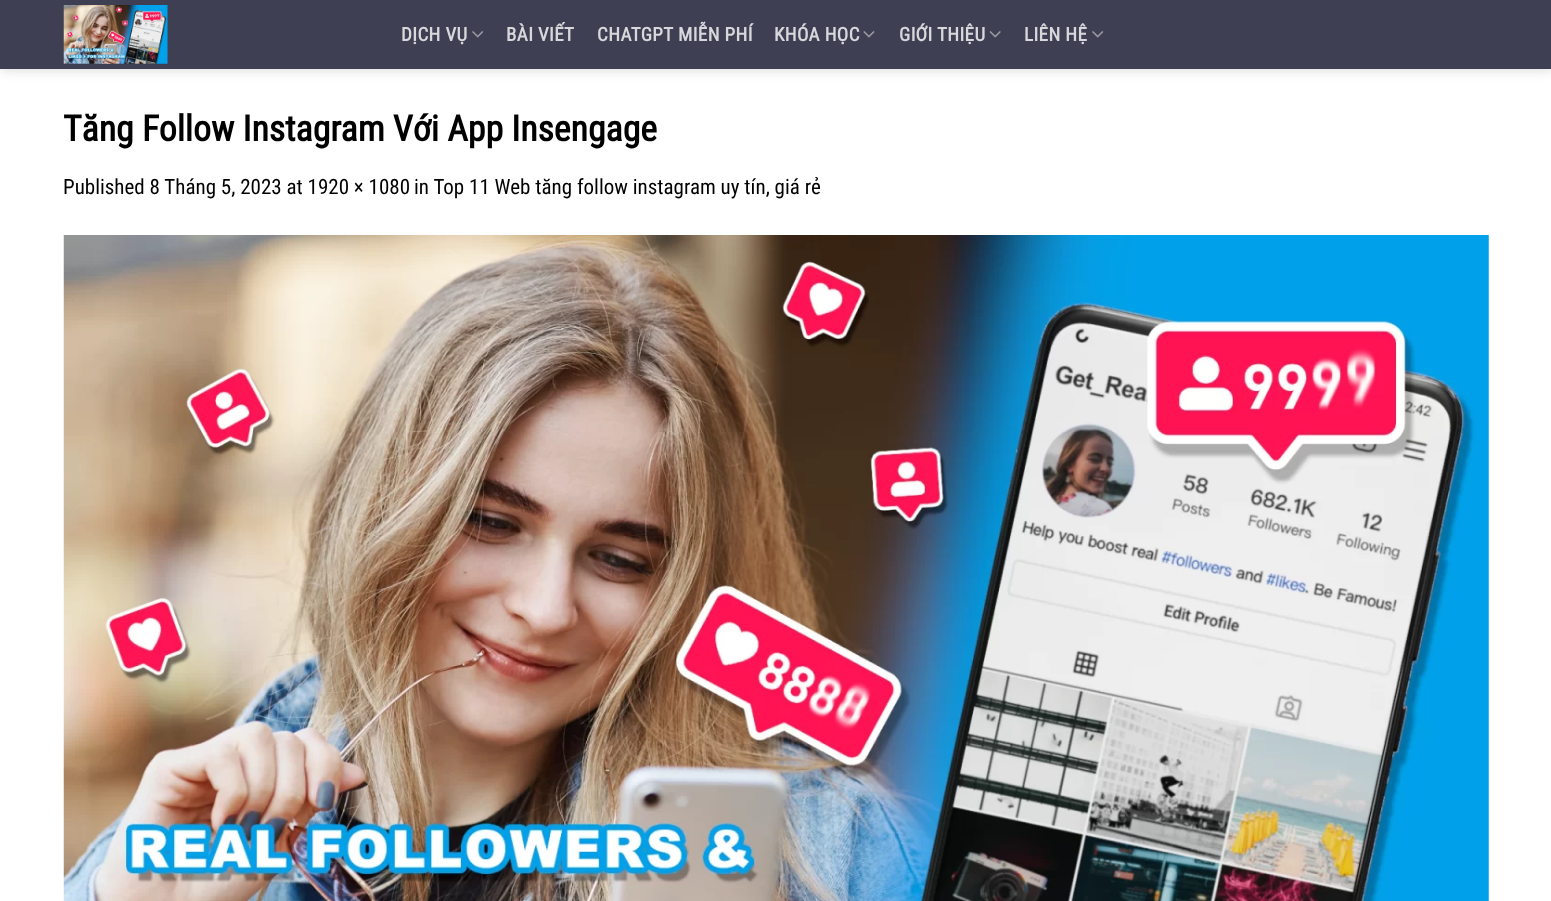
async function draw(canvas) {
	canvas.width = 1551;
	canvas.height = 901;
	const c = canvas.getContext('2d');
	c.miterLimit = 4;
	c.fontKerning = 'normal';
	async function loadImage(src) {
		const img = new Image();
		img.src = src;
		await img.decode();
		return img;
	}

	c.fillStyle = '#fff';
	c.fillRect(0, 0, 1551, 901);
	c.save();
	c.beginPath();
	c.moveTo(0, 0);
	c.lineTo(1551, 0);
	c.lineTo(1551, 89);
	c.lineTo(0, 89);
	c.closePath();
	c.moveTo(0, 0);
	c.lineTo(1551, 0);
	c.lineTo(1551, 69);
	c.lineTo(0, 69);
	c.closePath();
	c.clip('evenodd');
	c.fillStyle = '#00000026';
	c.filter = 'blur(6px)';
	c.beginPath();
	c.rect(1, 1, 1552, 69);
	c.fill();
	c.filter = 'none';
	c.restore();
	c.fillStyle = '#1e1f35db';
	c.fillRect(0, 0, 1551, 69);
	c.drawImage(await loadImage('img1.png'), 63, 5, 105, 59);
	c.letterSpacing = '0.4px';
	c.font = 'bold 19px Roboto Condensed';
	c.fillStyle = '#d8d8dc';
	c.fillText('DỊCH VỤ', 401, 41);
	c.drawImage(await loadImage('img2.png'), 472, 31, 12, 7);
	for (const [text, x, y] of [
		['BÀI VIẾT', 506, 41],
		['CHATGPT MIỄN PHÍ', 597, 41],
		['KHÓA HỌC', 774, 41],
	]) {
		c.fillText(text, x, y);
	}
	c.drawImage(await loadImage('img3.png'), 863, 31, 12, 7);
	c.fillText('GIỚI THIỆU', 899, 41);
	c.drawImage(await loadImage('img4.png'), 989, 31, 12, 7);
	c.fillText('LIÊN HỆ', 1024, 41);
	c.drawImage(await loadImage('img2.png'), 1092, 31, 12, 7);
	c.letterSpacing = '0px';
	c.font = 'bold 35.75px Roboto Condensed';
	c.fillStyle = '#000';
	c.fillText('Tăng Follow Instagram Với App Insengage', 63, 141);
	c.font = '21px Roboto Condensed';
	c.fillText('Published 8 Tháng 5, 2023 at 1920 × 1080', 63, 194);
	c.fillText('in Top 11 Web tăng follow instagram uy tín, giá rẻ', 414, 194);
	c.drawImage(await loadImage('img5.png'), 63, 235, 1426, 666);
}

draw(document.querySelector('canvas'));
